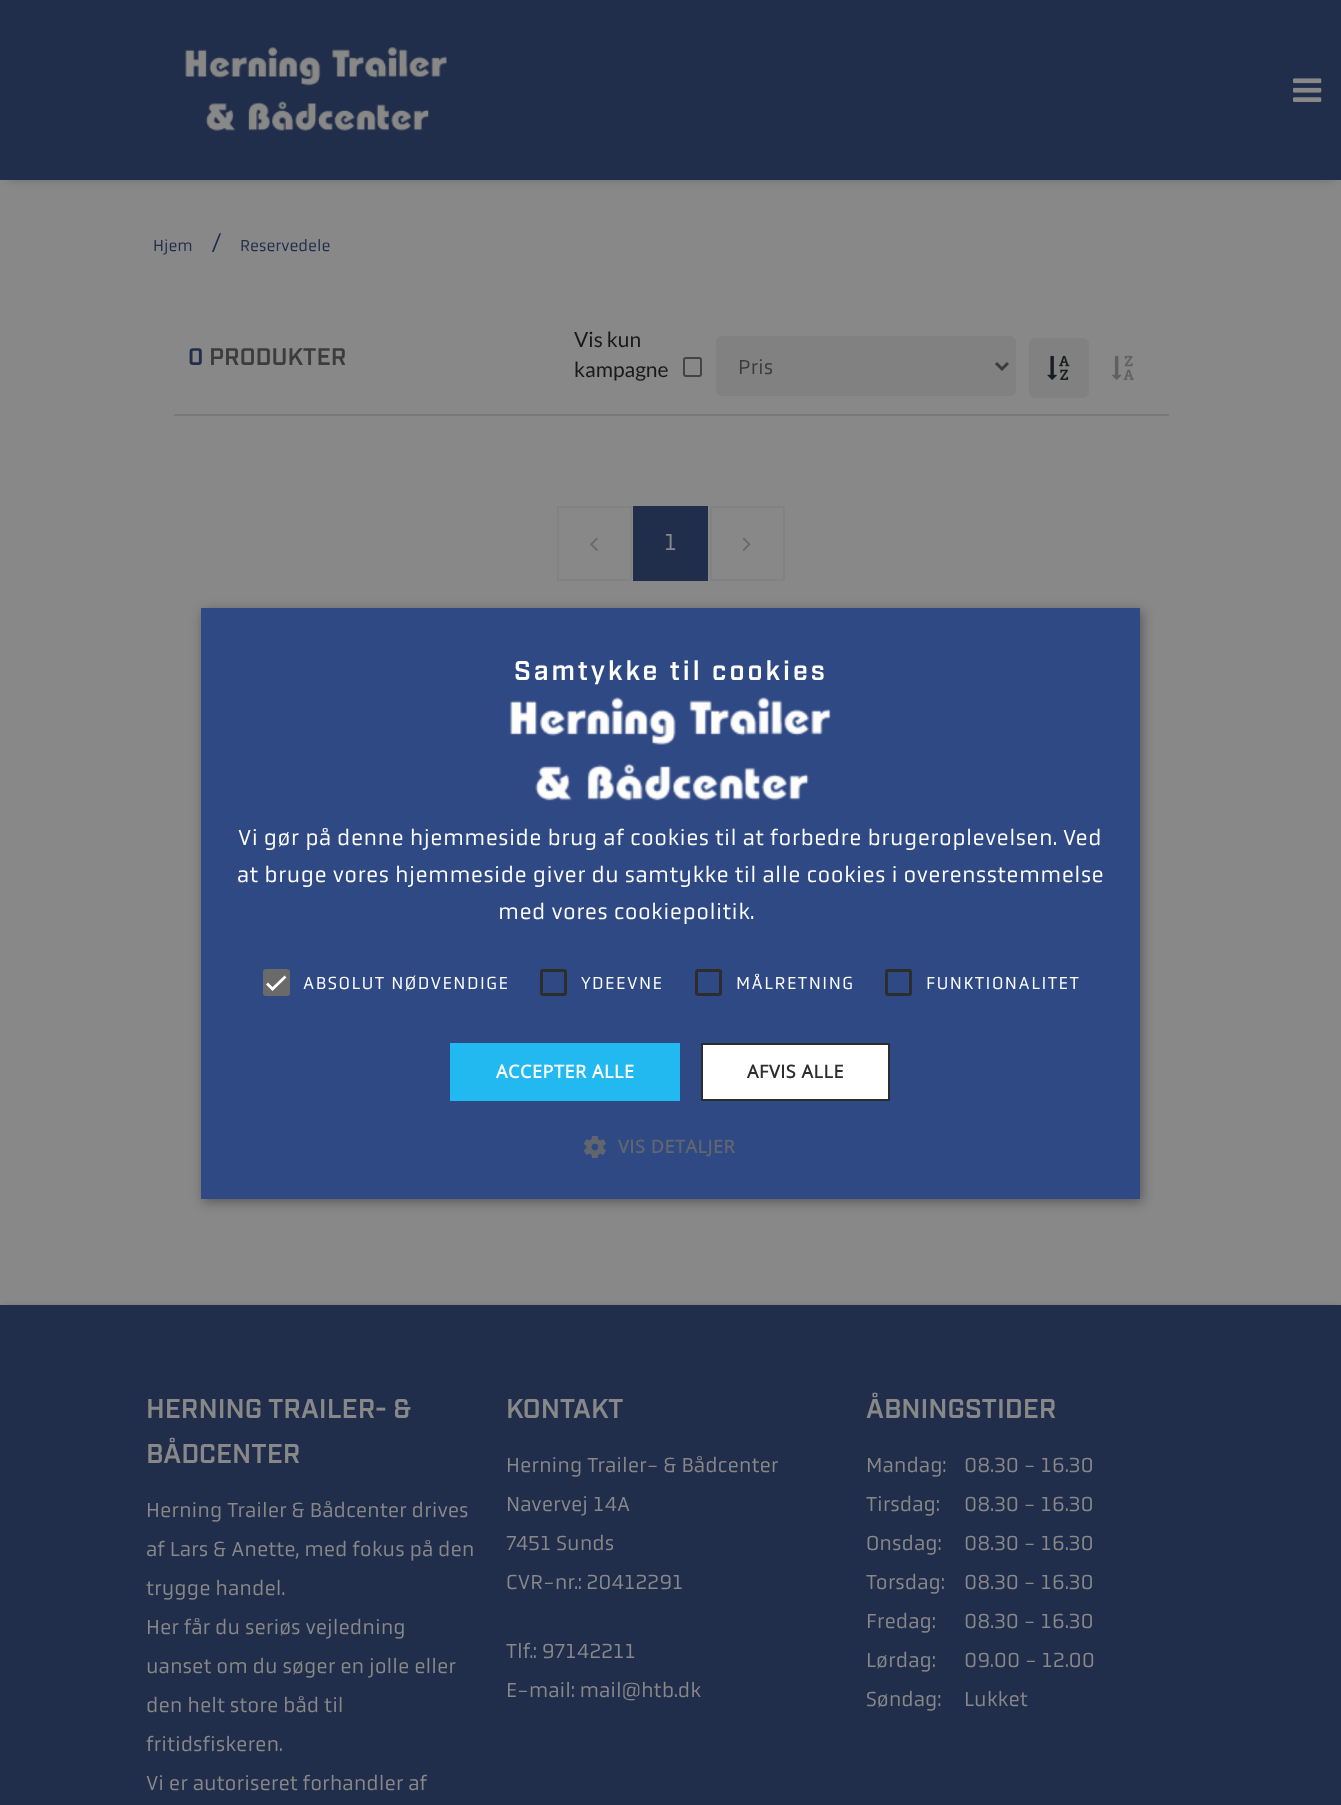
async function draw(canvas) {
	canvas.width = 1341;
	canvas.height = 1805;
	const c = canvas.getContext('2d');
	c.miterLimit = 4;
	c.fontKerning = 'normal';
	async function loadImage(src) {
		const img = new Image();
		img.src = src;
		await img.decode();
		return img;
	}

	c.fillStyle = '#888';
	c.fillRect(0, 0, 1341, 1805);
	c.fillStyle = '#09090933';
	c.filter = 'blur(4px)';
	c.beginPath();
	c.rect(8, 15, 1326, 165);
	c.fill();
	c.filter = 'none';
	c.fillStyle = '#202d4b';
	c.fillRect(0, 0, 1341, 180);
	c.drawImage(await loadImage('img1.png'), 185, 47, 262, 84);
	c.drawImage(await loadImage('img2.png'), 1293, 78, 29, 24);
	c.font = '600 16.5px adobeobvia';
	c.fillText('Hjem', 153, 251);
	c.font = '24px Lato';
	c.fillText('/', 212, 251);
	c.font = '600 16.5px adobeobvia';
	c.fillText('Reservedele', 240, 251);
	c.font = '600 24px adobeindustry';
	c.fillText('0', 188, 365);
	c.fillStyle = '#3c3c3c';
	c.fillText('PRODUKTER', 209, 365);
	c.font = '21px Lato';
	c.fillStyle = '#191919';
	c.fillText('Vis kun', 574, 347);
	c.fillText('kampagne', 574, 377);
	c.beginPath();
	c.roundRect(684, 358, 17, 18, 2);
	c.strokeStyle = '#444';
	c.lineWidth = 2;
	c.stroke();
	c.fillStyle = '#818181';
	c.beginPath();
	c.roundRect(716, 336, 300, 60, 6);
	c.fill();
	c.beginPath();
	c.moveTo(996, 363);
	c.lineTo(1002, 369);
	c.lineTo(1008, 363);
	c.strokeStyle = '#3c3c3c';
	c.lineWidth = 3;
	c.stroke();
	c.font = '600 21px adobeobvia';
	c.fillStyle = '#3c3c3c';
	c.fillText('Pris', 738, 374);
	c.fillStyle = '#818181';
	c.beginPath();
	c.roundRect(1029, 338, 60, 60, 6);
	c.fill();
	c.drawImage(await loadImage('img3.png'), 1047, 355, 23, 25);
	c.drawImage(await loadImage('img4.png'), 1112, 355, 22, 25);
	c.fillStyle = '#797979';
	c.fillRect(174, 414, 995, 2);
	c.strokeStyle = '#828282';
	c.lineWidth = 2;
	c.strokeRect(558, 507, 73, 73);
	c.drawImage(await loadImage('img5.png'), 590, 537, 8, 14);
	c.fillStyle = '#202d4b';
	c.fillRect(633, 506, 75, 75);
	c.font = '600 24px adobeobvia';
	c.fillStyle = '#888';
	c.fillText('1', 664, 550);
	c.strokeRect(711, 507, 73, 73);
	c.drawImage(await loadImage('img6.png'), 742, 537, 9, 14);
	c.fillStyle = '#09090999';
	c.filter = 'blur(4px)';
	c.beginPath();
	c.rect(5, 1310, 1332, 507);
	c.fill();
	c.filter = 'none';
	c.fillStyle = '#202d4b';
	c.fillRect(0, 1305, 1341, 500);
	c.font = '600 27px adobeindustry';
	c.fillStyle = '#888';
	c.fillText('HERNING TRAILER- &', 146, 1418);
	c.fillText('BÅDCENTER', 146, 1463);
	c.font = '600 21px adobeobvia';
	for (const [text, x, y] of [
		['Herning Trailer & Bådcenter drives', 146, 1517],
		['af Lars & Anette, med fokus på den', 146, 1556],
		['trygge handel.', 146, 1595],
		['Her får du seriøs vejledning', 146, 1634],
		['uanset om du søger en jolle eller', 146, 1673],
		['den helt store båd til', 146, 1712],
		['fritidsfiskeren.', 146, 1751],
		['Vi er autoriseret forhandler af', 146, 1790],
	]) {
		c.fillText(text, x, y);
	}
	c.font = '600 27px adobeindustry';
	c.fillText('KONTAKT', 506, 1418);
	c.font = '600 21px adobeobvia';
	for (const [text, x, y] of [
		['Herning Trailer- & Bådcenter', 506, 1472],
		['Navervej 14A', 506, 1511],
		['7451 Sunds', 506, 1550],
		['CVR-nr.: 20412291', 506, 1589],
		['Tlf.: 97142211', 506, 1658],
		['E-mail: mail@htb.dk', 506, 1697],
	]) {
		c.fillText(text, x, y);
	}
	c.font = '600 27px adobeindustry';
	c.fillText('ÅBNINGSTIDER', 866, 1418);
	c.font = '600 21px adobeobvia';
	for (const [text, x, y] of [
		['Mandag:', 866, 1472],
		['08.30 - 16.30', 964, 1472],
		['Tirsdag:', 866, 1511],
		['08.30 - 16.30', 964, 1511],
		['Onsdag:', 866, 1550],
		['08.30 - 16.30', 964, 1550],
		['Torsdag:', 866, 1589],
		['08.30 - 16.30', 964, 1589],
		['Fredag:', 866, 1628],
		['08.30 - 16.30', 964, 1628],
		['Lørdag:', 866, 1667],
		['09.00 - 12.00', 964, 1667],
		['Søndag:', 866, 1706],
		['Lukket', 964, 1706],
	]) {
		c.fillText(text, x, y);
	}
	c.fillStyle = '#00000059';
	c.filter = 'blur(6px)';
	c.beginPath();
	c.rect(203, 611, 939, 591);
	c.fill();
	c.filter = 'none';
	c.fillStyle = '#2f4985';
	c.fillRect(201, 608, 939, 591);
	c.letterSpacing = '3px';
	c.font = '600 27px adobeindustry';
	c.fillStyle = '#fff';
	c.fillText('Samtykke til cookies', 514, 680);
	c.drawImage(await loadImage('img7.png'), 509, 697, 322, 104);
	c.letterSpacing = '0.45px';
	c.font = '600 22.5px adobeobvia';
	for (const [text, x, y] of [
		['Vi gør på denne hjemmeside brug af cookies til at forbedre brugeroplevelsen. Ved', 238, 845],
		['at bruge vores hjemmeside giver du samtykke til alle cookies i overensstemmelse', 237, 882],
		['med vores cookiepolitik.', 498, 919],
	]) {
		c.fillText(text, x, y);
	}
	c.fillStyle = '#6a6a6a';
	c.beginPath();
	c.roundRect(264.5, 970.5, 24, 24, 1.5);
	c.fill();
	c.strokeStyle = '#6a6a6a';
	c.lineWidth = 3;
	c.stroke();
	c.beginPath();
	c.moveTo(267, 983.5);
	c.lineTo(272.5, 989);
	c.lineTo(285.5, 976.5);
	c.strokeStyle = '#fff';
	c.lineWidth = 2.7;
	c.stroke();
	c.letterSpacing = '1.5px';
	c.font = '600 18px adobeobvia';
	c.fillStyle = '#fff';
	c.fillText('ABSOLUT NØDVENDIGE', 303, 989);
	c.beginPath();
	c.roundRect(541.5, 970.5, 24, 24, 1.5);
	c.strokeStyle = '#2d2d2d';
	c.lineWidth = 3;
	c.stroke();
	c.fillText('YDEEVNE', 581, 989);
	c.beginPath();
	c.roundRect(696.5, 970.5, 24, 24, 1.5);
	c.stroke();
	c.fillText('MÅLRETNING', 736, 989);
	c.beginPath();
	c.roundRect(886.5, 970.5, 24, 24, 1.5);
	c.stroke();
	c.fillText('FUNKTIONALITET', 926, 989);
	c.fillStyle = '#22b8f0';
	c.fillRect(450, 1043, 230, 58);
	c.letterSpacing = '0.6px';
	c.font = 'bold 18px Open Sans';
	c.fillStyle = '#fff';
	c.fillText('ACCEPTER ALLE', 496, 1078);
	c.beginPath();
	c.rect(702, 1044, 187, 56);
	c.fill();
	c.lineWidth = 2;
	c.stroke();
	c.fillStyle = '#2d2d2d';
	c.fillText('AFVIS ALLE', 747, 1078);
	c.drawImage(await loadImage('img8.png'), 584, 1136, 22, 22);
	c.fillStyle = '#61656e';
	c.fillText('VIS DETALJER', 618, 1153);
}

draw(document.querySelector('canvas'));
